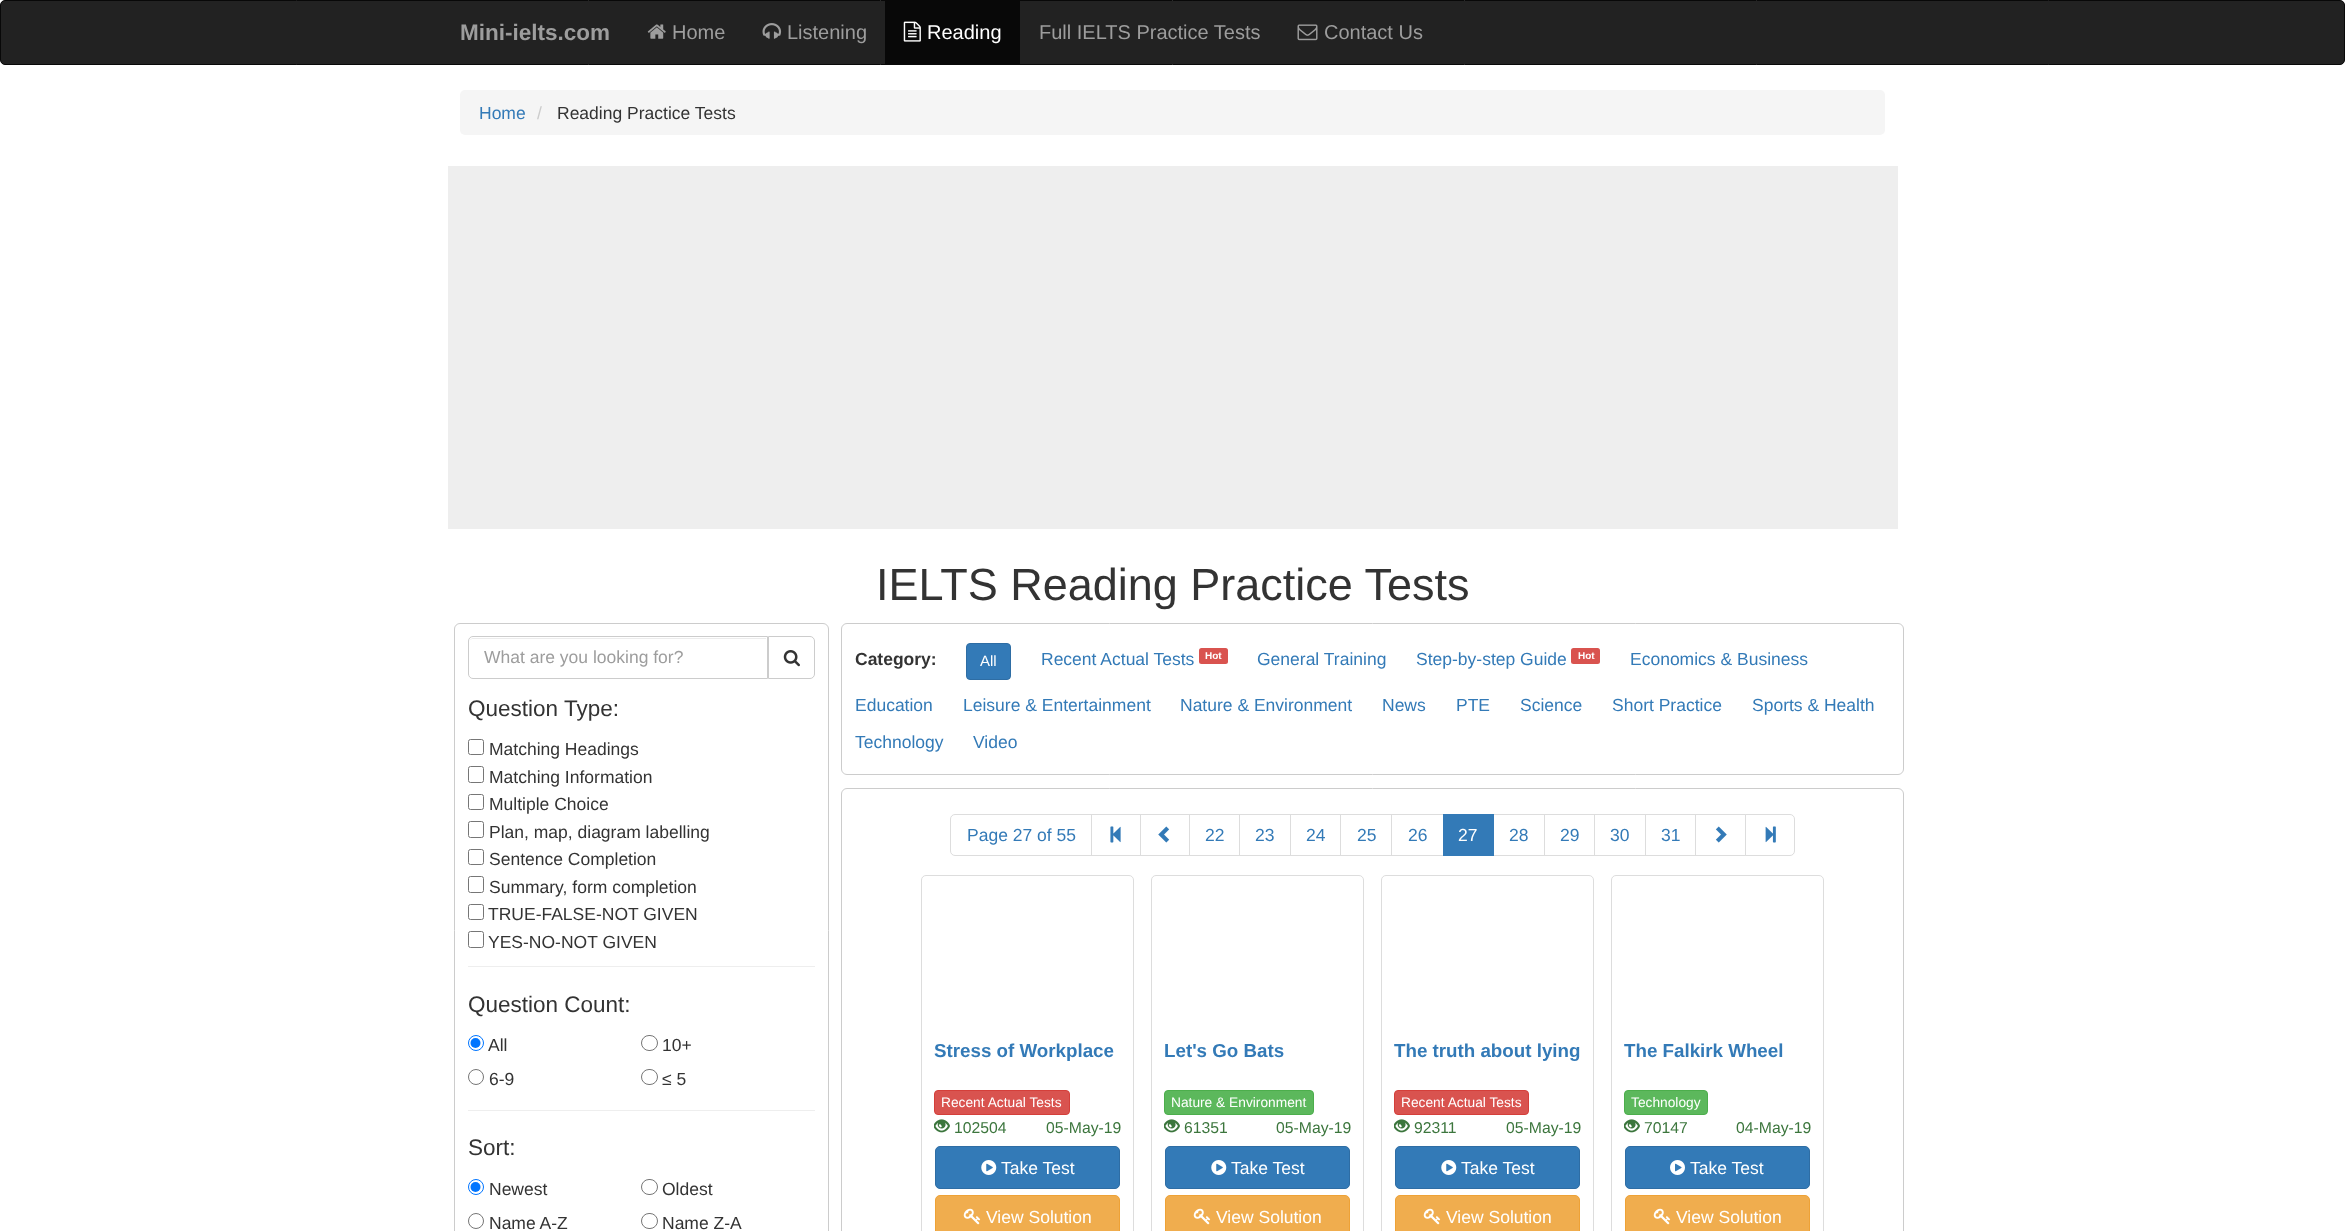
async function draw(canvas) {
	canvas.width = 2345;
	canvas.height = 1231;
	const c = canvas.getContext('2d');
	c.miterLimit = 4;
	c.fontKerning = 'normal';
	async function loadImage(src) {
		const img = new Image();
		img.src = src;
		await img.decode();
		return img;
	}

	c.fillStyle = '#fff';
	c.fillRect(0, 0, 2345, 1231);
	c.fillStyle = '#222';
	c.beginPath();
	c.roundRect(0.5, 0.5, 2344, 64, 4.5);
	c.fill();
	c.strokeStyle = '#080808';
	c.stroke();
	c.font = 'bold 22.5px Liberation Sans';
	c.fillStyle = '#9d9d9d';
	c.fillText('Mini-ielts.com', 460, 40);
	c.drawImage(await loadImage('img1.png'), 647, 24, 19, 15);
	c.font = '20px Liberation Sans';
	c.fillText('Home', 672, 39);
	c.drawImage(await loadImage('img2.png'), 762, 23, 20, 16);
	c.fillText('Listening', 787, 39);
	c.fillStyle = '#080808';
	c.fillRect(885, 1, 135, 63);
	c.drawImage(await loadImage('img3.png'), 903, 21, 18, 21);
	c.fillStyle = '#fff';
	c.fillText('Reading', 927, 39);
	c.fillStyle = '#9d9d9d';
	c.fillText('Full IELTS Practice Tests', 1039, 39);
	c.drawImage(await loadImage('img4.png'), 1297, 24, 21, 17);
	c.fillText('Contact Us', 1324, 39);
	c.fillStyle = '#f5f5f5';
	c.beginPath();
	c.roundRect(460, 90, 1425, 45, 5);
	c.fill();
	c.font = '17.5px Liberation Sans';
	c.fillStyle = '#337ab7';
	c.fillText('Home', 479, 119);
	c.fillStyle = '#ccc';
	c.fillText('/', 537, 119);
	c.fillStyle = '#333';
	c.fillText('Reading Practice Tests', 557, 119);
	c.fillStyle = '#eee';
	c.fillRect(448, 166, 1450, 363);
	c.font = '45px Liberation Sans';
	c.fillStyle = '#333';
	c.fillText('IELTS Reading Practice Tests', 876, 600);
	c.beginPath();
	c.roundRect(454.5, 623.5, 374, 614, 5.5);
	c.strokeStyle = '#ccc';
	c.stroke();
	c.fillStyle = '#ececec';
	c.beginPath();
	c.moveTo(472, 639);
	c.lineTo(766, 639);
	c.lineTo(766, 638);
	c.lineTo(473, 638);
	c.bezierCurveTo(472, 638, 470, 639, 470, 640);
	c.closePath();
	c.fill();
	c.beginPath();
	c.roundRect(468.5, 636.5, 299, 42, [4.5, 0, 0, 4.5]);
	c.stroke();
	c.font = '17.5px Liberation Sans';
	c.fillStyle = '#9d9d9d';
	c.fillText('What are you looking for?', 484, 663);
	c.beginPath();
	c.roundRect(768.5, 636.5, 46, 42, [0, 4.5, 4.5, 0]);
	c.stroke();
	c.drawImage(await loadImage('img5.png'), 783, 650, 17, 17);
	c.font = '22.5px Liberation Sans';
	c.fillStyle = '#333';
	c.fillText('Question Type:', 468, 716);
	c.beginPath();
	c.roundRect(468.5, 739.5, 15, 15, 2);
	c.strokeStyle = '#767676';
	c.stroke();
	c.font = '17.5px Liberation Sans';
	c.fillText('Matching Headings', 489, 755);
	c.beginPath();
	c.roundRect(468.5, 766.5, 15, 16, 2);
	c.stroke();
	c.fillText('Matching Information', 489, 783);
	c.beginPath();
	c.roundRect(468.5, 794.5, 15, 15, 2);
	c.stroke();
	c.fillText('Multiple Choice', 489, 810);
	c.beginPath();
	c.roundRect(468.5, 821.5, 15, 16, 2);
	c.stroke();
	c.fillText('Plan, map, diagram labelling', 489, 838);
	c.beginPath();
	c.roundRect(468.5, 849.5, 15, 15, 2);
	c.stroke();
	c.fillText('Sentence Completion', 489, 865);
	c.beginPath();
	c.roundRect(468.5, 876.5, 15, 16, 2);
	c.stroke();
	c.fillText('Summary, form completion', 489, 893);
	c.beginPath();
	c.roundRect(468.5, 904.5, 15, 15, 2);
	c.stroke();
	c.fillText('TRUE-FALSE-NOT GIVEN', 488, 920);
	c.beginPath();
	c.roundRect(468.5, 931.5, 15, 16, 2);
	c.stroke();
	c.fillText('YES-NO-NOT GIVEN', 488, 948);
	c.fillStyle = '#eee';
	c.fillRect(468, 966, 347, 1);
	c.font = '22.5px Liberation Sans';
	c.fillStyle = '#333';
	c.fillText('Question Count:', 468, 1012);
	c.beginPath();
	c.arc(476, 1043, 7.5, 0, 2 * Math.PI);
	c.strokeStyle = '#0075ff';
	c.stroke();
	c.fillStyle = '#0075ff';
	c.beginPath();
	c.arc(475.5, 1043, 5, 0, 2 * Math.PI);
	c.fill();
	c.font = '17.5px Liberation Sans';
	c.fillStyle = '#333';
	c.fillText('All', 488, 1051);
	c.beginPath();
	c.roundRect(641.5, 1035.5, 16, 15, 7.5);
	c.strokeStyle = '#767676';
	c.stroke();
	c.fillText('10+', 662, 1051);
	c.beginPath();
	c.arc(476, 1077, 7.5, 0, 2 * Math.PI);
	c.stroke();
	c.fillText('6-9', 489, 1085);
	c.beginPath();
	c.roundRect(641.5, 1069.5, 16, 15, 7.5);
	c.stroke();
	c.fillText('≤ 5', 662, 1085);
	c.fillStyle = '#eee';
	c.fillRect(468, 1110, 347, 1);
	c.font = '22.5px Liberation Sans';
	c.fillStyle = '#333';
	c.fillText('Sort:', 468, 1155);
	c.beginPath();
	c.arc(476, 1187, 7.5, 0, 2 * Math.PI);
	c.strokeStyle = '#0075ff';
	c.stroke();
	c.fillStyle = '#0075ff';
	c.beginPath();
	c.arc(475.5, 1187, 5, 0, 2 * Math.PI);
	c.fill();
	c.font = '17.5px Liberation Sans';
	c.fillStyle = '#333';
	c.fillText('Newest', 489, 1195);
	c.beginPath();
	c.roundRect(641.5, 1179.5, 16, 15, 7.5);
	c.strokeStyle = '#767676';
	c.stroke();
	c.fillText('Oldest', 662, 1195);
	c.beginPath();
	c.arc(476, 1221, 7.5, 0, 2 * Math.PI);
	c.stroke();
	c.fillText('Name A-Z', 489, 1229);
	c.beginPath();
	c.roundRect(641.5, 1213.5, 16, 15, 7.5);
	c.stroke();
	c.fillText('Name Z-A', 662, 1229);
	c.beginPath();
	c.roundRect(841.5, 623.5, 1062, 151, 5.5);
	c.strokeStyle = '#ccc';
	c.stroke();
	c.font = 'bold 17.5px Liberation Sans';
	c.fillText('Category:', 855, 665);
	c.fillStyle = '#337ab7';
	c.beginPath();
	c.roundRect(966.5, 643.5, 44, 36, 3.5);
	c.fill();
	c.strokeStyle = '#2e6da4';
	c.stroke();
	c.font = '15px Liberation Sans';
	c.fillStyle = '#fff';
	c.fillText('All', 980, 666);
	c.font = '17.5px Liberation Sans';
	c.fillStyle = '#337ab7';
	c.fillText('Recent Actual Tests', 1041, 665);
	c.fillStyle = '#d9534f';
	c.beginPath();
	c.roundRect(1199, 648, 29, 16, 2.5);
	c.fill();
	c.font = 'bold 10px Liberation Sans';
	c.fillStyle = '#fff';
	c.fillText('Hot', 1205, 659);
	c.font = '17.5px Liberation Sans';
	c.fillStyle = '#337ab7';
	c.fillText('General Training', 1257, 665);
	c.fillText('Step-by-step Guide', 1416, 665);
	c.fillStyle = '#d9534f';
	c.beginPath();
	c.roundRect(1571, 648, 29, 16, 2.5);
	c.fill();
	c.font = 'bold 10px Liberation Sans';
	c.fillStyle = '#fff';
	c.fillText('Hot', 1578, 659);
	c.font = '17.5px Liberation Sans';
	c.fillStyle = '#337ab7';
	for (const [text, x, y] of [
		['Economics & Business', 1630, 665],
		['Education', 855, 711],
		['Leisure & Entertainment', 963, 711],
		['Nature & Environment', 1180, 711],
		['News', 1382, 711],
		['PTE', 1456, 711],
		['Science', 1520, 711],
		['Short Practice', 1612, 711],
		['Sports & Health', 1752, 711],
		['Technology', 855, 748],
		['Video', 973, 748],
	]) {
		c.fillText(text, x, y);
	}
	c.beginPath();
	c.roundRect(841.5, 788.5, 1062, 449, 5.5);
	c.strokeStyle = '#ccc';
	c.stroke();
	c.beginPath();
	c.roundRect(950.5, 814.5, 142, 41, [4.5, 0, 0, 4.5]);
	c.strokeStyle = '#ddd';
	c.stroke();
	c.fillText('Page 27 of 55', 967, 841);
	c.fillStyle = '#fff';
	c.fillRect(1092, 815, 1, 40);
	c.strokeRect(1091.5, 814.5, 49, 41);
	c.drawImage(await loadImage('img6.png'), 1110, 826, 11, 17);
	c.strokeRect(1140.5, 814.5, 49, 41);
	c.drawImage(await loadImage('img7.png'), 1158, 826, 12, 17);
	c.strokeRect(1189.5, 814.5, 50, 41);
	c.fillStyle = '#337ab7';
	c.fillText('22', 1205, 841);
	c.strokeRect(1239.5, 814.5, 51, 41);
	c.fillText('23', 1255, 841);
	c.strokeRect(1290.5, 814.5, 50, 41);
	c.fillText('24', 1306, 841);
	c.strokeRect(1340.5, 814.5, 52, 41);
	c.fillText('25', 1357, 841);
	c.fillStyle = '#fff';
	c.fillRect(1392, 815, 1, 40);
	c.strokeRect(1391.5, 814.5, 52, 41);
	c.fillStyle = '#337ab7';
	c.fillText('26', 1408, 841);
	c.strokeRect(1493.5, 814.5, 51, 41);
	c.fillRect(1443, 814, 51, 42);
	c.fillStyle = '#fff';
	c.fillText('27', 1458, 841);
	c.fillStyle = '#337ab7';
	c.fillText('28', 1509, 841);
	c.strokeRect(1544.5, 814.5, 50, 41);
	c.fillText('29', 1560, 841);
	c.strokeRect(1594.5, 814.5, 51, 41);
	c.fillText('30', 1610, 841);
	c.strokeRect(1645.5, 814.5, 50, 41);
	c.fillText('31', 1661, 841);
	c.strokeRect(1695.5, 814.5, 50, 41);
	c.drawImage(await loadImage('img8.png'), 1715, 826, 12, 17);
	c.fillStyle = '#fff';
	c.beginPath();
	c.roundRect(1745.5, 814.5, 49, 41, [0, 4.5, 4.5, 0]);
	c.fill();
	c.stroke();
	c.drawImage(await loadImage('img9.png'), 1765, 826, 11, 17);
	c.beginPath();
	c.roundRect(921.5, 875.5, 212, 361, 4.5);
	c.stroke();
	c.font = 'bold 18.75px Liberation Sans';
	c.fillStyle = '#337ab7';
	c.fillText('Stress of Workplace', 934, 1057);
	c.fillStyle = '#d9534f';
	c.beginPath();
	c.roundRect(934.5, 1090.5, 135, 24, 3.5);
	c.fill();
	c.strokeStyle = '#d43f3a';
	c.stroke();
	c.font = '13.75px Liberation Sans';
	c.fillStyle = '#fff';
	c.fillText('Recent Actual Tests', 941, 1107);
	c.drawImage(await loadImage('img10.png'), 934, 1119, 16, 14);
	c.font = '15.75px Liberation Sans';
	c.fillStyle = '#3c763d';
	c.fillText('102504', 954, 1133);
	c.fillText('05-May-19', 1046, 1133);
	c.fillStyle = '#337ab7';
	c.beginPath();
	c.roundRect(935.5, 1146.5, 184, 42, 4.5);
	c.fill();
	c.strokeStyle = '#2e6da4';
	c.stroke();
	c.drawImage(await loadImage('img11.png'), 981, 1160, 16, 15);
	c.font = '17.5px Liberation Sans';
	c.fillStyle = '#fff';
	c.fillText('Take Test', 1001, 1174);
	c.fillStyle = '#f0ad4e';
	c.beginPath();
	c.roundRect(935.5, 1195.5, 184, 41, 4.5);
	c.fill();
	c.strokeStyle = '#eea236';
	c.stroke();
	c.drawImage(await loadImage('img12.png'), 963, 1208, 18, 17);
	c.fillStyle = '#fff';
	c.fillText('View Solution', 986, 1223);
	c.beginPath();
	c.roundRect(1151.5, 875.5, 212, 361, 4.5);
	c.strokeStyle = '#ddd';
	c.stroke();
	c.font = 'bold 18.75px Liberation Sans';
	c.fillStyle = '#337ab7';
	c.fillText('Let\'s Go Bats', 1164, 1057);
	c.fillStyle = '#5cb85c';
	c.beginPath();
	c.roundRect(1164.5, 1090.5, 149, 24, 3.5);
	c.fill();
	c.strokeStyle = '#4cae4c';
	c.stroke();
	c.font = '13.75px Liberation Sans';
	c.fillStyle = '#fff';
	c.fillText('Nature & Environment', 1171, 1107);
	c.drawImage(await loadImage('img10.png'), 1164, 1119, 16, 14);
	c.font = '15.75px Liberation Sans';
	c.fillStyle = '#3c763d';
	c.fillText('61351', 1184, 1133);
	c.fillText('05-May-19', 1276, 1133);
	c.fillStyle = '#337ab7';
	c.beginPath();
	c.roundRect(1165.5, 1146.5, 184, 42, 4.5);
	c.fill();
	c.strokeStyle = '#2e6da4';
	c.stroke();
	c.drawImage(await loadImage('img11.png'), 1211, 1160, 16, 15);
	c.font = '17.5px Liberation Sans';
	c.fillStyle = '#fff';
	c.fillText('Take Test', 1231, 1174);
	c.fillStyle = '#f0ad4e';
	c.beginPath();
	c.roundRect(1165.5, 1195.5, 184, 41, 4.5);
	c.fill();
	c.strokeStyle = '#eea236';
	c.stroke();
	c.drawImage(await loadImage('img12.png'), 1193, 1208, 18, 17);
	c.fillStyle = '#fff';
	c.fillText('View Solution', 1216, 1223);
	c.beginPath();
	c.roundRect(1381.5, 875.5, 212, 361, 4.5);
	c.strokeStyle = '#ddd';
	c.stroke();
	c.font = 'bold 18.75px Liberation Sans';
	c.fillStyle = '#337ab7';
	c.fillText('The truth about lying', 1394, 1057);
	c.fillStyle = '#d9534f';
	c.beginPath();
	c.roundRect(1394.5, 1090.5, 134, 24, 3.5);
	c.fill();
	c.strokeStyle = '#d43f3a';
	c.stroke();
	c.font = '13.75px Liberation Sans';
	c.fillStyle = '#fff';
	c.fillText('Recent Actual Tests', 1401, 1107);
	c.drawImage(await loadImage('img10.png'), 1394, 1119, 16, 14);
	c.font = '15.75px Liberation Sans';
	c.fillStyle = '#3c763d';
	c.fillText('92311', 1414, 1133);
	c.fillText('05-May-19', 1506, 1133);
	c.fillStyle = '#337ab7';
	c.beginPath();
	c.roundRect(1395.5, 1146.5, 184, 42, 4.5);
	c.fill();
	c.strokeStyle = '#2e6da4';
	c.stroke();
	c.drawImage(await loadImage('img11.png'), 1441, 1160, 16, 15);
	c.font = '17.5px Liberation Sans';
	c.fillStyle = '#fff';
	c.fillText('Take Test', 1461, 1174);
	c.fillStyle = '#f0ad4e';
	c.beginPath();
	c.roundRect(1395.5, 1195.5, 184, 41, 4.5);
	c.fill();
	c.strokeStyle = '#eea236';
	c.stroke();
	c.drawImage(await loadImage('img12.png'), 1423, 1208, 18, 17);
	c.fillStyle = '#fff';
	c.fillText('View Solution', 1446, 1223);
	c.beginPath();
	c.roundRect(1611.5, 875.5, 212, 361, 4.5);
	c.strokeStyle = '#ddd';
	c.stroke();
	c.font = 'bold 18.75px Liberation Sans';
	c.fillStyle = '#337ab7';
	c.fillText('The Falkirk Wheel', 1624, 1057);
	c.fillStyle = '#5cb85c';
	c.beginPath();
	c.roundRect(1624.5, 1090.5, 83, 24, 3.5);
	c.fill();
	c.strokeStyle = '#4cae4c';
	c.stroke();
	c.font = '13.75px Liberation Sans';
	c.fillStyle = '#fff';
	c.fillText('Technology', 1631, 1107);
	c.drawImage(await loadImage('img10.png'), 1624, 1119, 16, 14);
	c.font = '15.75px Liberation Sans';
	c.fillStyle = '#3c763d';
	c.fillText('70147', 1644, 1133);
	c.fillText('04-May-19', 1736, 1133);
	c.fillStyle = '#337ab7';
	c.beginPath();
	c.roundRect(1625.5, 1146.5, 184, 42, 4.5);
	c.fill();
	c.strokeStyle = '#2e6da4';
	c.stroke();
	c.drawImage(await loadImage('img13.png'), 1670, 1160, 15, 15);
	c.font = '17.5px Liberation Sans';
	c.fillStyle = '#fff';
	c.fillText('Take Test', 1690, 1174);
	c.fillStyle = '#f0ad4e';
	c.beginPath();
	c.roundRect(1625.5, 1195.5, 184, 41, 4.5);
	c.fill();
	c.strokeStyle = '#eea236';
	c.stroke();
	c.drawImage(await loadImage('img12.png'), 1653, 1208, 18, 17);
	c.fillStyle = '#fff';
	c.fillText('View Solution', 1676, 1223);
}

draw(document.querySelector('canvas'));
